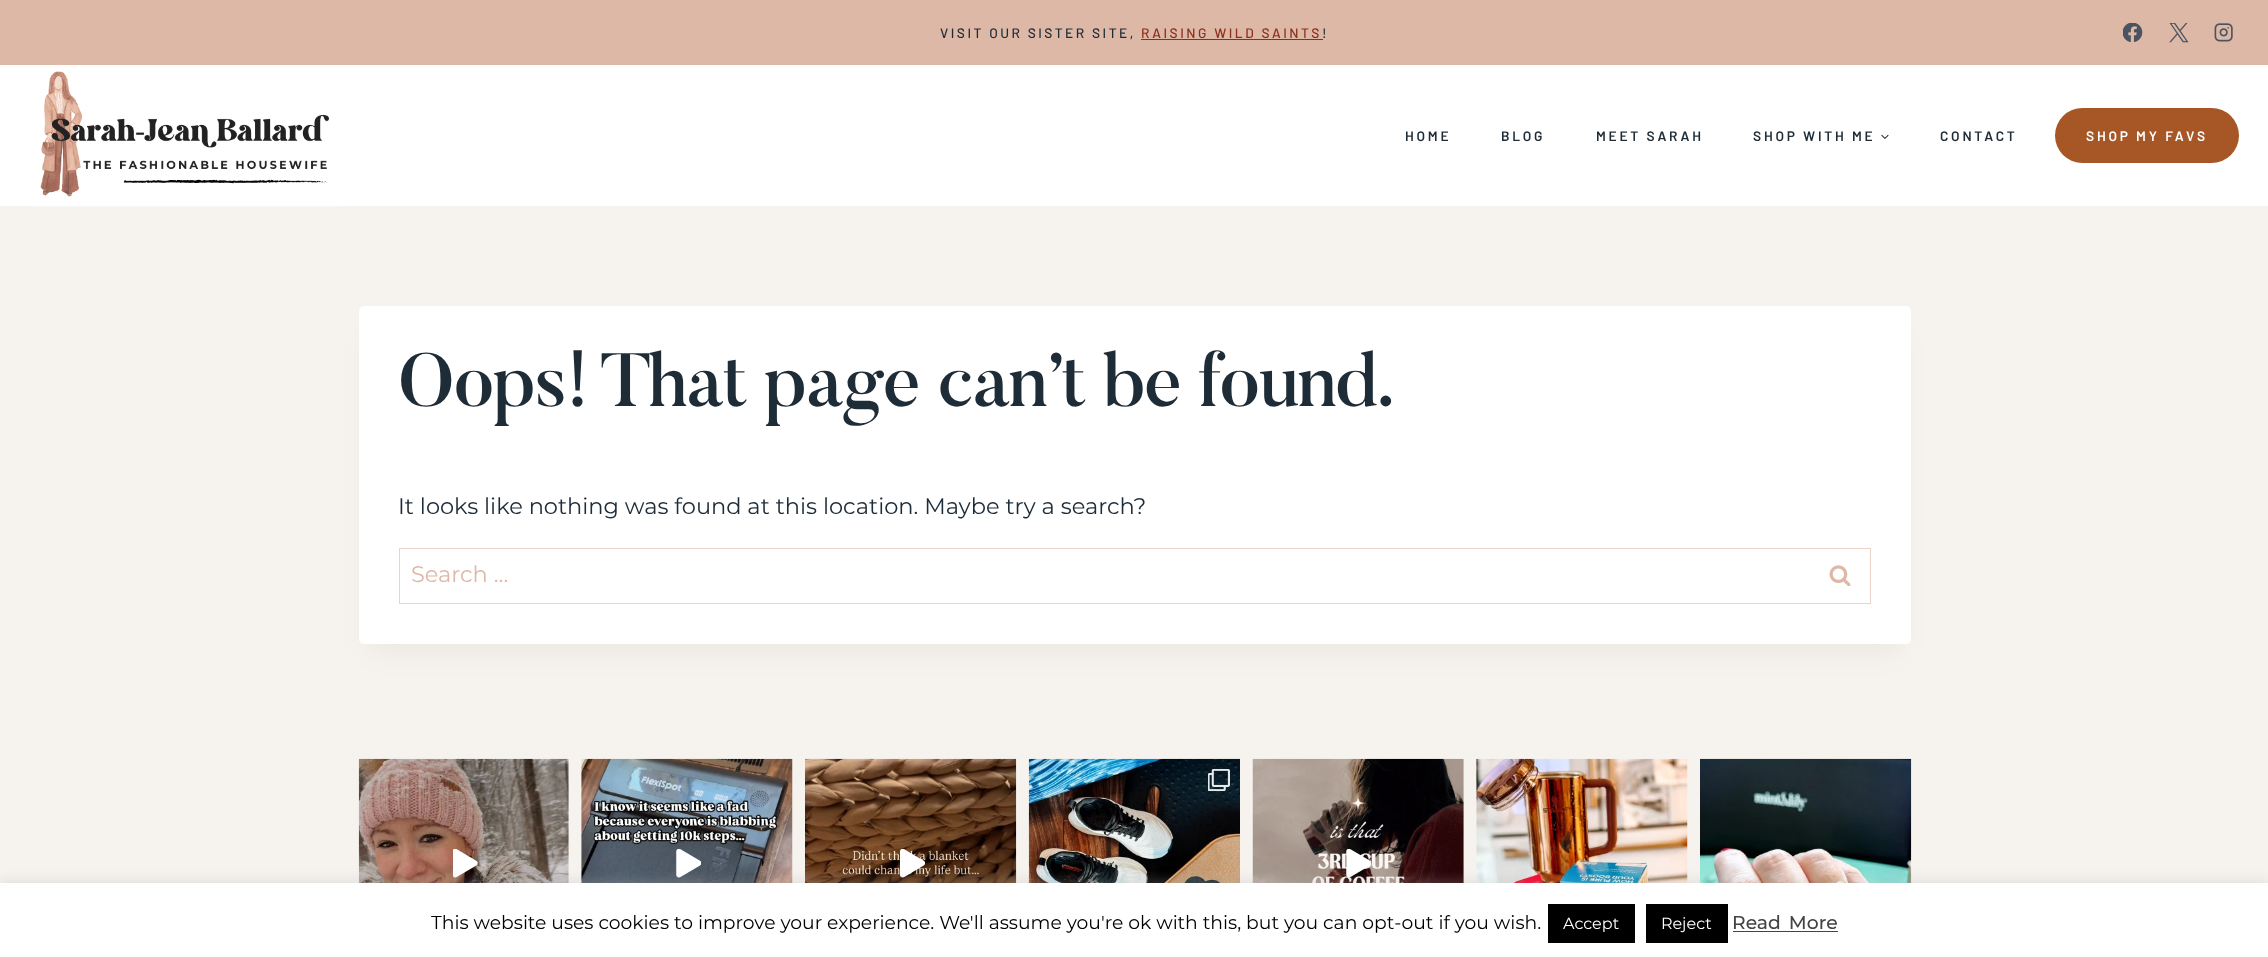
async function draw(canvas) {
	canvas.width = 2268;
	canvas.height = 957;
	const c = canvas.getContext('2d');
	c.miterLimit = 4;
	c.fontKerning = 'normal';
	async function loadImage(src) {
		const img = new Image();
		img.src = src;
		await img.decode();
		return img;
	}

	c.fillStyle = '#f6f3ef';
	c.fillRect(0, 0, 2268, 957);
	c.fillStyle = '#fff';
	c.fillRect(0, 65, 2268, 141);
	c.fillStyle = '#ddb8a6';
	c.fillRect(0, 0, 2268, 65);
	c.letterSpacing = '2.5px';
	c.font = '500 13.75px Barlow';
	c.fillStyle = '#1e2c38';
	c.fillText('VISIT OUR SISTER SITE,', 940, 38);
	c.fillStyle = '#8c301d';
	c.fillText('RAISING WILD SAINTS', 1141, 38);
	c.fillRect(1141, 39, 182, 1);
	c.fillStyle = '#1e2c38';
	c.fillText('!', 1322, 38);
	c.drawImage(await loadImage('img1.png'), 2123, 23, 20, 20);
	c.drawImage(await loadImage('img2.png'), 2169, 23, 20, 20);
	c.drawImage(await loadImage('img3.png'), 2214, 23, 19, 19);
	c.drawImage(await loadImage('img4.png'), 30, 71, 312, 136);
	c.letterSpacing = '2.75px';
	c.font = '600 13.75px Barlow';
	for (const [text, x, y] of [
		['HOME', 1405, 141],
		['BLOG', 1501, 141],
		['MEET SARAH', 1596, 141],
		['SHOP WITH ME', 1753, 141],
	]) {
		c.fillText(text, x, y);
	}
	c.drawImage(await loadImage('img5.png'), 1881, 134, 8, 5);
	c.fillText('CONTACT', 1940, 141);
	c.fillStyle = '#a75726';
	c.beginPath();
	c.roundRect(2055, 108, 184, 55, 27.5);
	c.fill();
	c.fillStyle = '#fff';
	c.fillText('SHOP MY FAVS', 2086, 141);
	c.fillStyle = '#0000000d';
	c.filter = 'blur(15.5px)';
	c.beginPath();
	c.rect(371, 338, 1528, 312);
	c.fill();
	c.filter = 'none';
	c.fillStyle = '#fff';
	c.beginPath();
	c.roundRect(359, 306, 1552, 338, 5);
	c.fill();
	c.letterSpacing = '-1.5px';
	c.font = '500 75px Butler';
	c.fillStyle = '#1e2c38';
	c.fillText('Oops! That page can’t be found.', 398, 406);
	c.letterSpacing = '0px';
	c.font = '22.5px Montserrat';
	c.fillText('It looks like nothing was found at this location. Maybe try a search?', 398, 514);
	c.strokeStyle = '#ead4c9';
	c.strokeRect(399.5, 548.5, 1471, 55);
	c.fillStyle = '#ddb8a6';
	c.fillText('Search …', 411, 582);
	c.drawImage(await loadImage('img6.png'), 1829, 565, 22, 21);
	c.drawImage(await loadImage('img7.png'), 358, 758, 211, 125);
	c.drawImage(await loadImage('img8.png'), 453, 849, 25, 29);
	c.drawImage(await loadImage('img9.png'), 581, 758, 212, 125);
	c.drawImage(await loadImage('img10.png'), 676, 849, 25, 29);
	c.drawImage(await loadImage('img11.png'), 805, 758, 212, 125);
	c.drawImage(await loadImage('img12.png'), 900, 849, 25, 29);
	c.drawImage(await loadImage('img13.png'), 1028, 758, 212, 125);
	c.drawImage(await loadImage('img14.png'), 1208, 769, 22, 22);
	c.drawImage(await loadImage('img15.png'), 1252, 758, 212, 125);
	c.drawImage(await loadImage('img16.png'), 1346, 849, 25, 29);
	c.drawImage(await loadImage('img17.png'), 1476, 758, 212, 125);
	c.drawImage(await loadImage('img18.png'), 1700, 758, 212, 125);
	c.fillStyle = '#acabab4d';
	c.filter = 'blur(6px)';
	c.beginPath();
	c.rect(0, 881, 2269, 75);
	c.fill();
	c.filter = 'none';
	c.fillStyle = '#fff';
	c.fillRect(0, 883, 2268, 74);
	c.font = '18.75px Montserrat';
	c.fillStyle = '#000';
	c.fillText('This website uses cookies to improve your experience. We\'ll assume you\'re ok with this, but you can opt-out if you wish.', 431, 929);
	c.fillRect(1548, 904, 87, 39);
	c.font = '16px Montserrat';
	c.fillStyle = '#fff';
	c.fillText('Accept', 1563, 929);
	c.fillStyle = '#000';
	c.fillRect(1646, 904, 82, 39);
	c.fillStyle = '#fff';
	c.fillText('Reject', 1661, 929);
	c.wordSpacing = '3px';
	c.font = '500 18.75px Montserrat';
	c.fillStyle = '#444';
	c.fillText('Read More', 1732, 929);
	c.fillRect(1733, 931, 105, 1);
}

draw(document.querySelector('canvas'));
